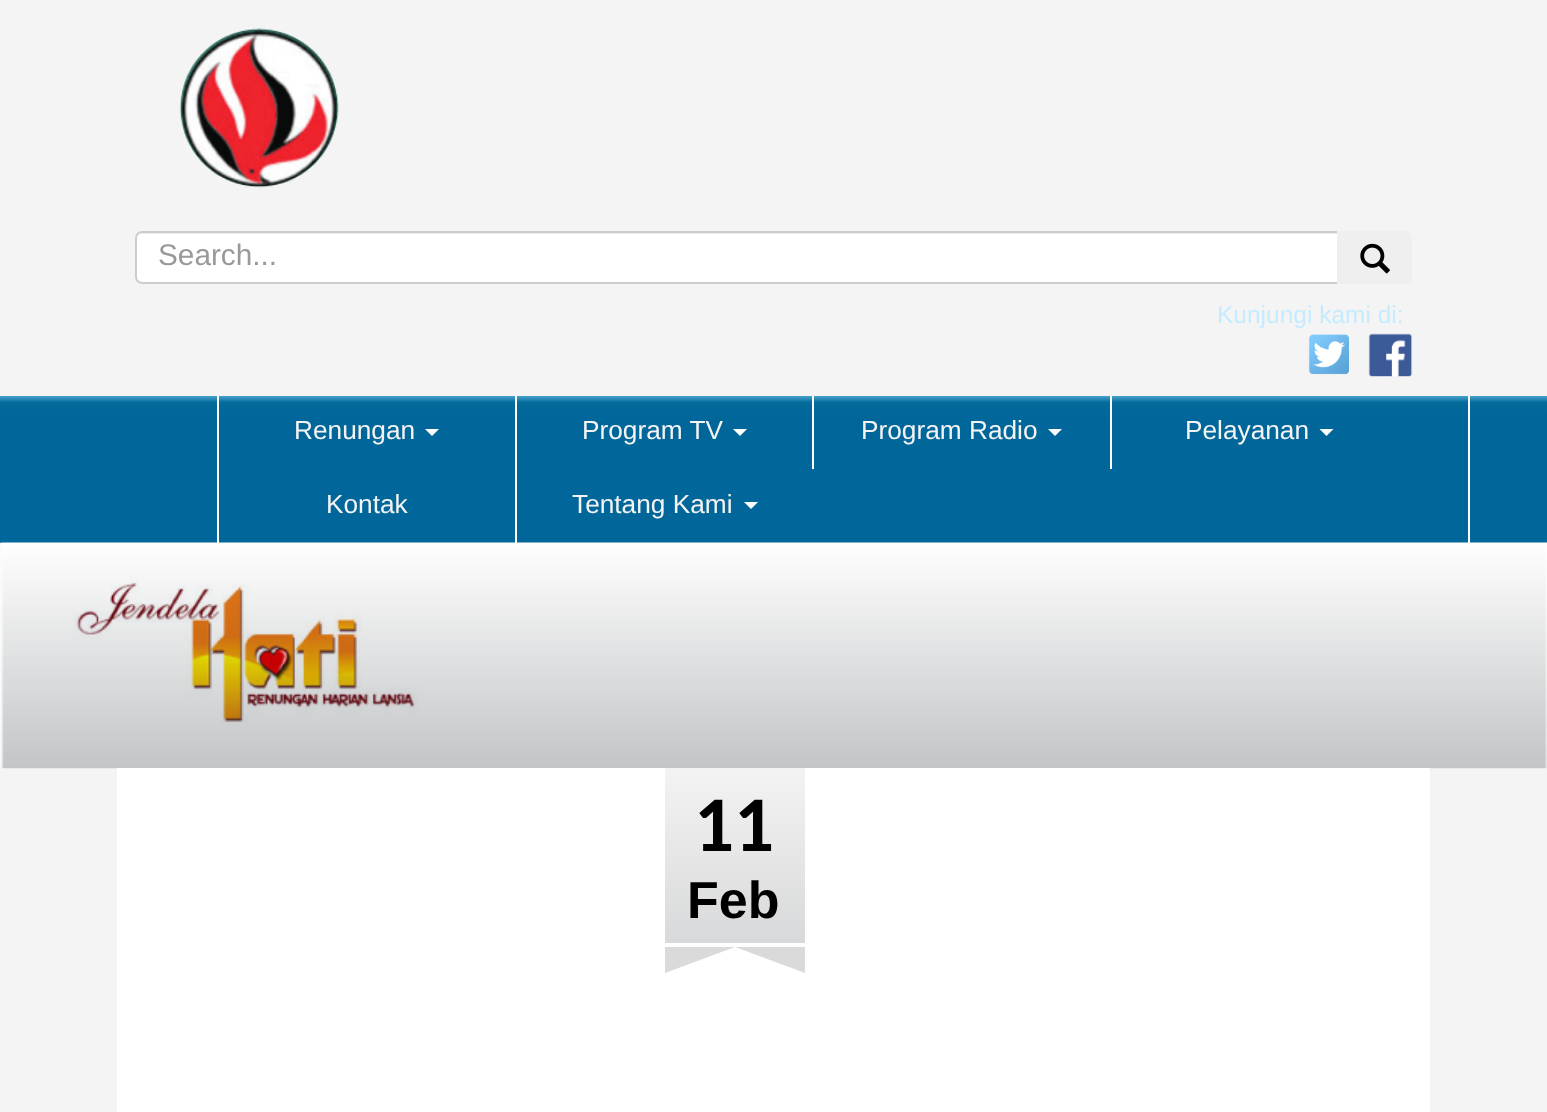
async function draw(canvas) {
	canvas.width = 1547;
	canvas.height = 1112;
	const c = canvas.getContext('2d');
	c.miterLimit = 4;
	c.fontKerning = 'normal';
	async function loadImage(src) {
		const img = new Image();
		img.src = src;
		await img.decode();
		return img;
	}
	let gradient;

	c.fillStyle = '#f4f4f4';
	c.fillRect(0, 0, 1547, 1112);
	c.drawImage(await loadImage('img1.png'), 179, 28, 160, 160);
	c.fillStyle = '#fff';
	c.beginPath();
	c.roundRect(135, 231, 1204, 53, [7, 0, 0, 7]);
	c.fill();
	c.fillStyle = '#ececec';
	c.beginPath();
	c.moveTo(142, 234);
	c.lineTo(1337, 234);
	c.lineTo(1337, 233);
	c.lineTo(142, 233);
	c.bezierCurveTo(140, 233, 138, 235, 137, 237);
	c.bezierCurveTo(138, 235, 140, 234, 142, 234);
	c.closePath();
	c.fill();
	c.beginPath();
	c.roundRect(136, 232, 1202, 51, [6, 0, 0, 6]);
	c.strokeStyle = '#ccc';
	c.lineWidth = 2;
	c.stroke();
	c.font = '29.75px Liberation Sans';
	c.fillStyle = '#999';
	c.fillText('Search...', 158, 265);
	c.fillStyle = '#efefef';
	c.beginPath();
	c.roundRect(1337, 231, 75, 53, [0, 7, 7, 0]);
	c.fill();
	c.drawImage(await loadImage('img2.png'), 1360, 243, 30, 31);
	c.font = '24.5px Liberation Sans';
	c.fillStyle = '#c5ebff';
	c.fillText('Kunjungi kami di:', 1217, 323);
	c.drawImage(await loadImage('img3.png'), 1308, 334, 41, 41);
	c.drawImage(await loadImage('img4.png'), 1368, 333, 45, 44);
	c.fillStyle = '#01679b';
	c.fillRect(0, 403, 1547, 15);
	gradient = c.createLinearGradient(774, 395, 774, 543);
	gradient.addColorStop(0, '#53abd2');
	gradient.addColorStop(0.05, '#046c9c');
	gradient.addColorStop(0.1, '#03689adb');
	gradient.addColorStop(0.16, '#01679b');
	gradient.addColorStop(1, '#01679b');
	c.fillStyle = gradient;
	c.fillRect(0, 396, 1547, 147);
	c.fillStyle = '#fff';
	c.fillRect(1468, 396, 2, 147);
	c.fillRect(217, 396, 2, 147);
	c.font = '26.25px Liberation Sans';
	c.fillStyle = '#f4f4f4';
	c.fillText('Renungan', 294, 439);
	c.fillStyle = '#fdfdfd';
	c.beginPath();
	c.moveTo(425, 429);
	c.lineTo(439, 429);
	c.lineTo(432, 436);
	c.closePath();
	c.fill();
	c.fillStyle = '#fff';
	c.fillRect(515, 396, 2, 147);
	c.fillStyle = '#f4f4f4';
	c.fillText('Program TV', 582, 439);
	c.fillStyle = '#fdfdfd';
	c.beginPath();
	c.moveTo(733, 429);
	c.lineTo(747, 429);
	c.lineTo(740, 436);
	c.closePath();
	c.fill();
	c.fillStyle = '#fff';
	c.fillRect(812, 396, 2, 73);
	c.fillStyle = '#f4f4f4';
	c.fillText('Program Radio', 861, 439);
	c.fillStyle = '#fdfdfd';
	c.beginPath();
	c.moveTo(1048, 429);
	c.lineTo(1062, 429);
	c.lineTo(1055, 436);
	c.closePath();
	c.fill();
	c.fillStyle = '#fff';
	c.fillRect(1110, 396, 2, 73);
	c.fillStyle = '#f4f4f4';
	c.fillText('Pelayanan', 1185, 439);
	c.fillStyle = '#fdfdfd';
	c.beginPath();
	c.moveTo(1319.5, 429);
	c.lineTo(1333.5, 429);
	c.lineTo(1326.5, 436);
	c.closePath();
	c.fill();
	c.fillStyle = '#f4f4f4';
	c.fillText('Kontak', 326, 513);
	c.fillText('Tentang Kami', 572, 513);
	c.fillStyle = '#fdfdfd';
	c.beginPath();
	c.moveTo(744, 502);
	c.lineTo(758, 502);
	c.lineTo(751, 509);
	c.closePath();
	c.fill();
	c.drawImage(await loadImage('img5.png'), 0, 542, 1547, 227);
	c.fillStyle = '#fff';
	c.fillRect(117, 768, 1313, 344);
	gradient = c.createLinearGradient(735, 768, 735, 943);
	gradient.addColorStop(0, '#f3f3f3');
	gradient.addColorStop(1, '#d8d9da');
	c.fillStyle = gradient;
	c.fillRect(665, 768, 140, 175);
	c.font = 'bold 79px Carlito';
	c.fillStyle = '#000';
	c.fillText('11', 694, 851);
	c.font = 'bold 52px Liberation Sans';
	c.fillText('Feb', 687, 918);
	c.fillStyle = '#dadada';
	c.beginPath();
	c.moveTo(805, 947);
	c.lineTo(805, 973);
	c.lineTo(735, 947);
	c.closePath();
	c.fill();
	c.beginPath();
	c.moveTo(665, 973);
	c.lineTo(665, 947);
	c.lineTo(735, 947);
	c.closePath();
	c.fill();
}

draw(document.querySelector('canvas'));
